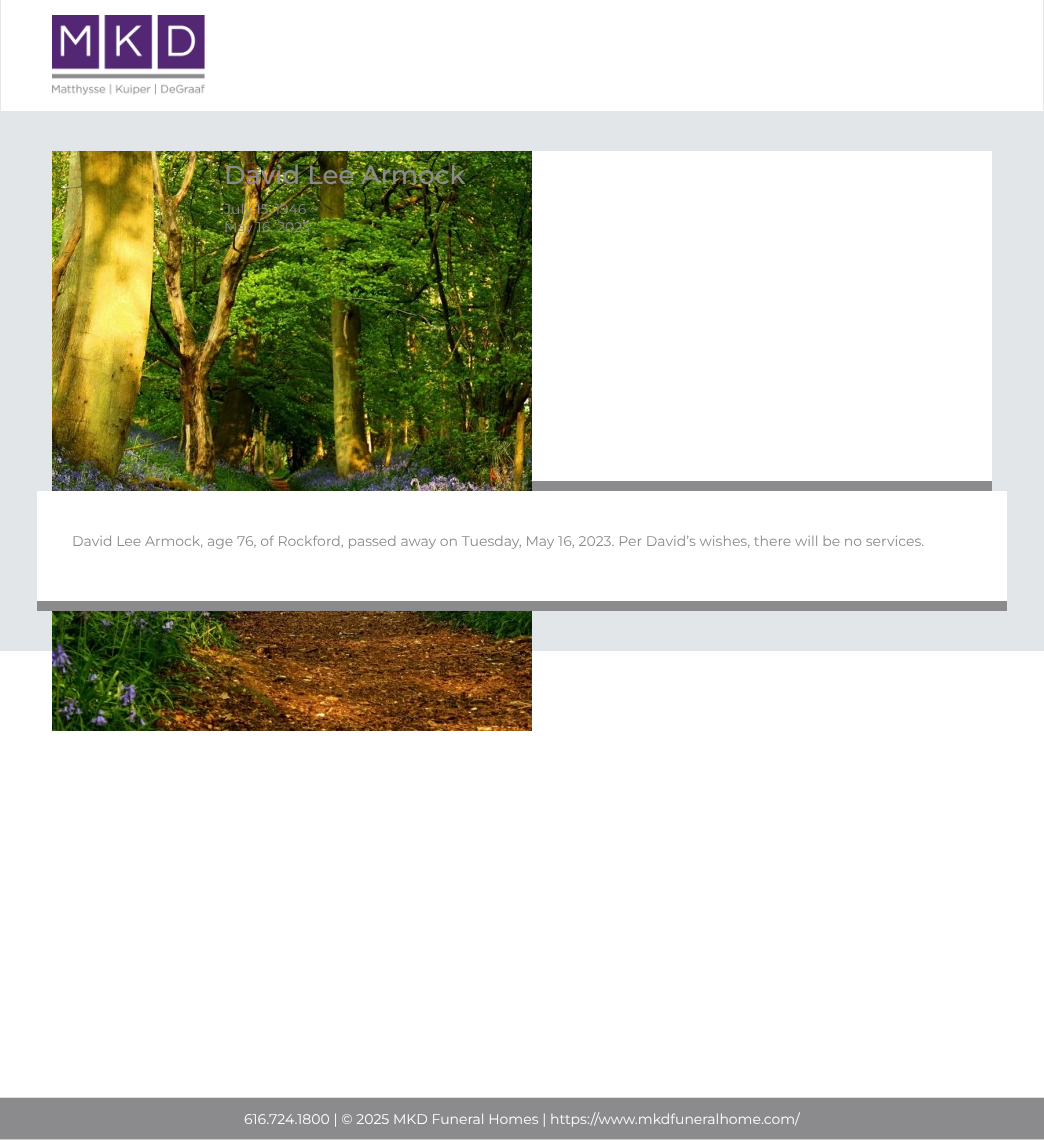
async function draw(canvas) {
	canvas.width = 1044;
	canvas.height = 1140;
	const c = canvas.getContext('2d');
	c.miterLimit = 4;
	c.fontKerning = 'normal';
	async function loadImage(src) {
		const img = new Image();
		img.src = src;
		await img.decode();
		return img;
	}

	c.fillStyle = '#fff';
	c.fillRect(0, 0, 1044, 1140);
	c.fillStyle = '#e7e7e7';
	c.beginPath();
	c.moveTo(1044, 0);
	c.lineTo(1044, 111);
	c.lineTo(1043, 110);
	c.lineTo(1043, 0);
	c.closePath();
	c.fill();
	c.beginPath();
	c.moveTo(0, 111);
	c.lineTo(0, 0);
	c.lineTo(1, 0);
	c.lineTo(1, 110);
	c.closePath();
	c.fill();
	c.drawImage(await loadImage('img1.png'), 52, 15, 153, 80);
	for (const [x, y, w, h, color] of [
		[0, 111, 1044, 540, '#e3e6e8'],
		[532, 151, 460, 330, '#fff'],
		[532, 481, 460, 10, '#8b8a8d'],
	]) {
		c.fillStyle = color;
		c.fillRect(x, y, w, h);
	}
	c.drawImage(await loadImage('img2.png'), 52, 151, 480, 580);
	c.font = '500 26px Montserrat';
	c.fillText('David Lee Armock', 224, 184);
	c.font = '14px Montserrat';
	c.fillText('July 15, 1946 ~', 224, 214);
	c.fillText('May 16, 2023', 224, 232);
	c.fillStyle = '#fff';
	c.fillRect(37, 491, 970, 110);
	c.fillStyle = '#8b8a8d';
	c.fillRect(37, 601, 970, 10);
	c.fillText('David Lee Armock, age 76, of Rockford, passed away on Tuesday, May 16, 2023. Per David’s wishes, there will be no services.', 72, 546);
	for (const [x, y, w, h, color] of [
		[0, 1098, 1044, 41, '#8b8a8d'],
		[0, 1097, 1044, 1, '#ddd'],
		[0, 1139, 1044, 1, '#ccc'],
	]) {
		c.fillStyle = color;
		c.fillRect(x, y, w, h);
	}
	c.fillStyle = '#fff';
	c.fillText('616.724.1800 | © 2025 MKD Funeral Homes | https://www.mkdfuneralhome.com/', 244, 1124);
}

draw(document.querySelector('canvas'));
